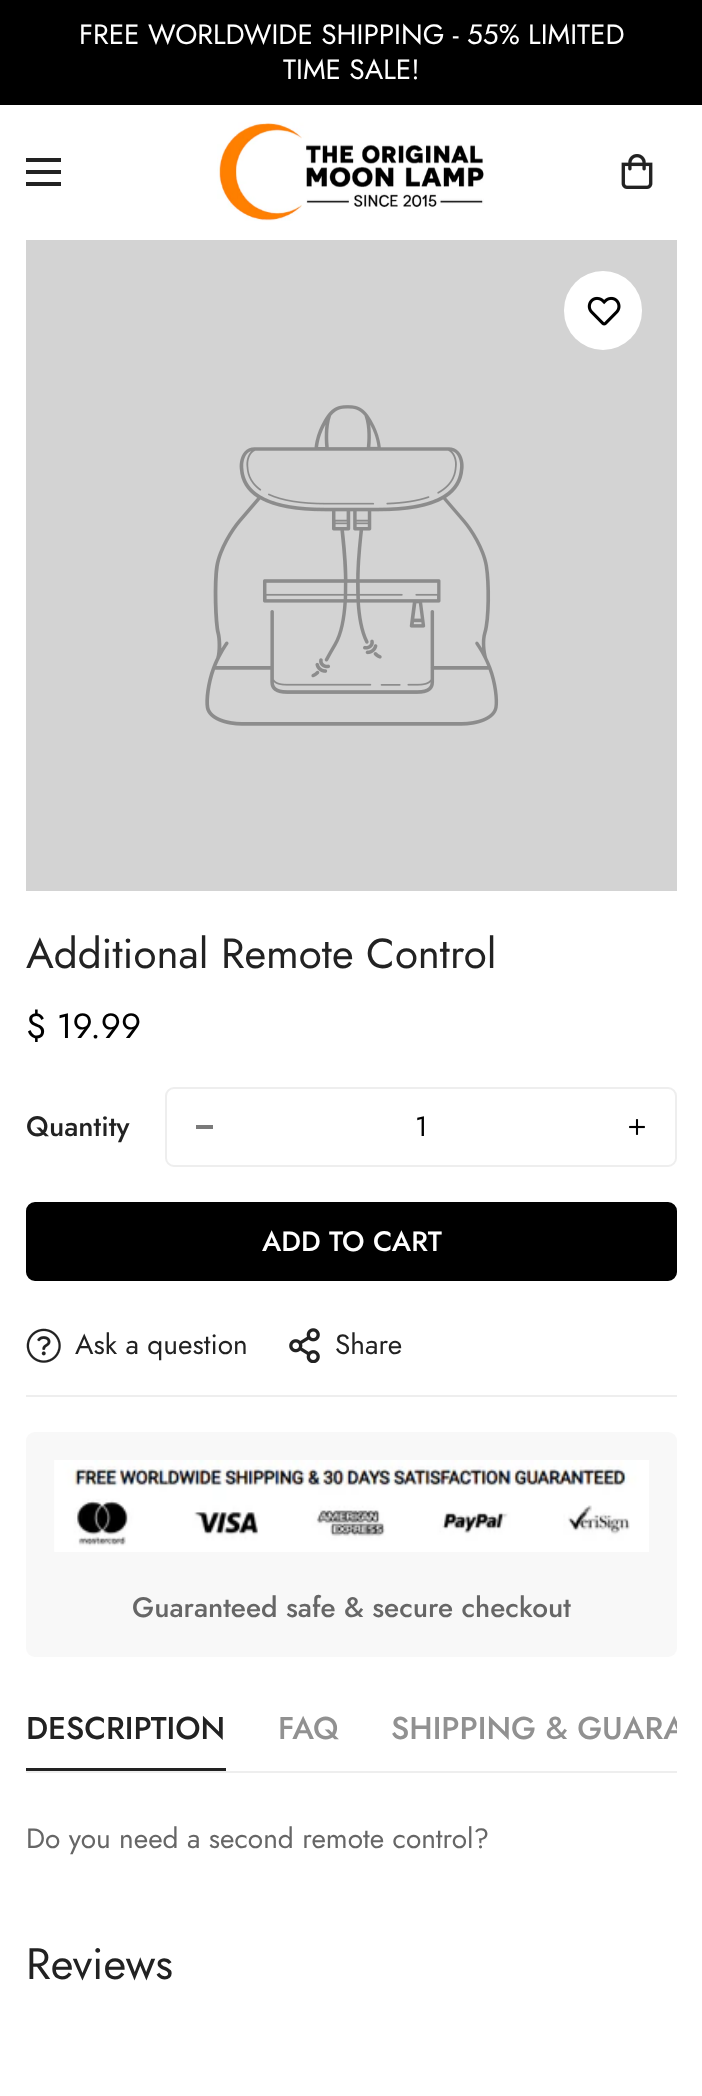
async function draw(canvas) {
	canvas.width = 702;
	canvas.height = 2096;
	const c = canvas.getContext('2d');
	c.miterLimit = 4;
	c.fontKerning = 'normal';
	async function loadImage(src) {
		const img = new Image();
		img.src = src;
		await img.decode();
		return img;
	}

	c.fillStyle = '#fff';
	c.fillRect(0, 0, 702, 2096);
	c.fillStyle = '#000';
	c.fillRect(0, 0, 702, 105);
	c.font = '28px Jost';
	c.fillStyle = '#fff';
	c.fillText('FREE WORLDWIDE SHIPPING - 55% LIMITED', 79, 44);
	c.fillText('TIME SALE!', 283, 79);
	for (const [x, y, w, h, color] of [
		[26, 170, 35, 4, '#222'],
		[26, 158, 35, 4, '#222'],
		[26, 182, 35, 4, '#222'],
	]) {
		c.fillStyle = color;
		c.fillRect(x, y, w, h);
	}
	c.drawImage(await loadImage('img1.png'), 217, 122, 267, 99);
	c.drawImage(await loadImage('img2.png'), 621, 154, 32, 35);
	c.fillStyle = '#d3d3d3';
	c.fillRect(26, 240, 651, 651);
	c.drawImage(await loadImage('img3.png'), 205, 405, 294, 321);
	c.fillStyle = '#fff';
	c.beginPath();
	c.roundRect(564, 271, 78, 79, 39);
	c.fill();
	c.drawImage(await loadImage('img4.png'), 587, 296, 34, 30);
	c.font = '42px Jost';
	c.fillStyle = '#222';
	c.fillText('Additional Remote Control', 26, 968);
	c.font = '35px Jost';
	c.fillStyle = '#000';
	c.fillText('$ 19.99', 26, 1038);
	c.font = '500 28px Jost';
	c.fillStyle = '#222';
	c.fillText('Quantity', 26, 1136);
	c.beginPath();
	c.roundRect(166, 1088, 510, 78, 8);
	c.strokeStyle = '#eee';
	c.lineWidth = 2;
	c.stroke();
	c.fillStyle = '#7a7a7a';
	c.fillRect(196, 1125, 17, 4);
	c.font = '28px Jost';
	c.fillStyle = '#000';
	c.fillText('1', 415, 1136);
	c.drawImage(await loadImage('img5.png'), 629, 1119, 16, 16);
	c.beginPath();
	c.roundRect(27, 1203, 649, 77, 8);
	c.fill();
	c.strokeStyle = '#000';
	c.stroke();
	c.font = '500 28px Jost';
	c.fillStyle = '#fff';
	c.fillText('ADD TO CART', 262, 1251);
	c.fillStyle = '#eee';
	c.fillRect(26, 1395, 651, 2);
	c.drawImage(await loadImage('img6.png'), 26, 1328, 35, 35);
	c.font = '28px Jost';
	c.fillStyle = '#222';
	c.fillText('Ask a question', 75, 1354);
	c.drawImage(await loadImage('img7.png'), 289, 1328, 31, 35);
	c.fillText('Share', 335, 1354);
	c.fillStyle = '#f8f8f8';
	c.beginPath();
	c.roundRect(26, 1432, 651, 225, 9);
	c.fill();
	c.drawImage(await loadImage('img8.png'), 54, 1460, 595, 92);
	c.font = '500 28px Jost';
	c.fillStyle = '#666';
	c.fillText('Guaranteed safe & secure checkout', 132, 1617);
	c.fillStyle = '#eee';
	c.fillRect(26, 1771, 651, 2);
	c.font = '500 31.5px Jost';
	c.fillStyle = '#222';
	c.fillText('DESCRIPTION', 26, 1739);
	c.fillRect(26, 1768, 200, 3);
	c.fillStyle = '#919191';
	c.fillText('FAQ', 278, 1739);
	c.save();
	c.beginPath();
	c.rect(26, 1692, 651, 79);
	c.clip();
	c.fillText('SHIPPING & GUARA', 391, 1739);
	c.restore();
	c.font = '28px Jost';
	c.fillStyle = '#666';
	c.fillText('Do you need a second remote control?', 26, 1848);
	c.font = '44px Jost';
	c.fillStyle = '#222';
	c.fillText('Reviews', 26, 1979);
}

draw(document.querySelector('canvas'));
